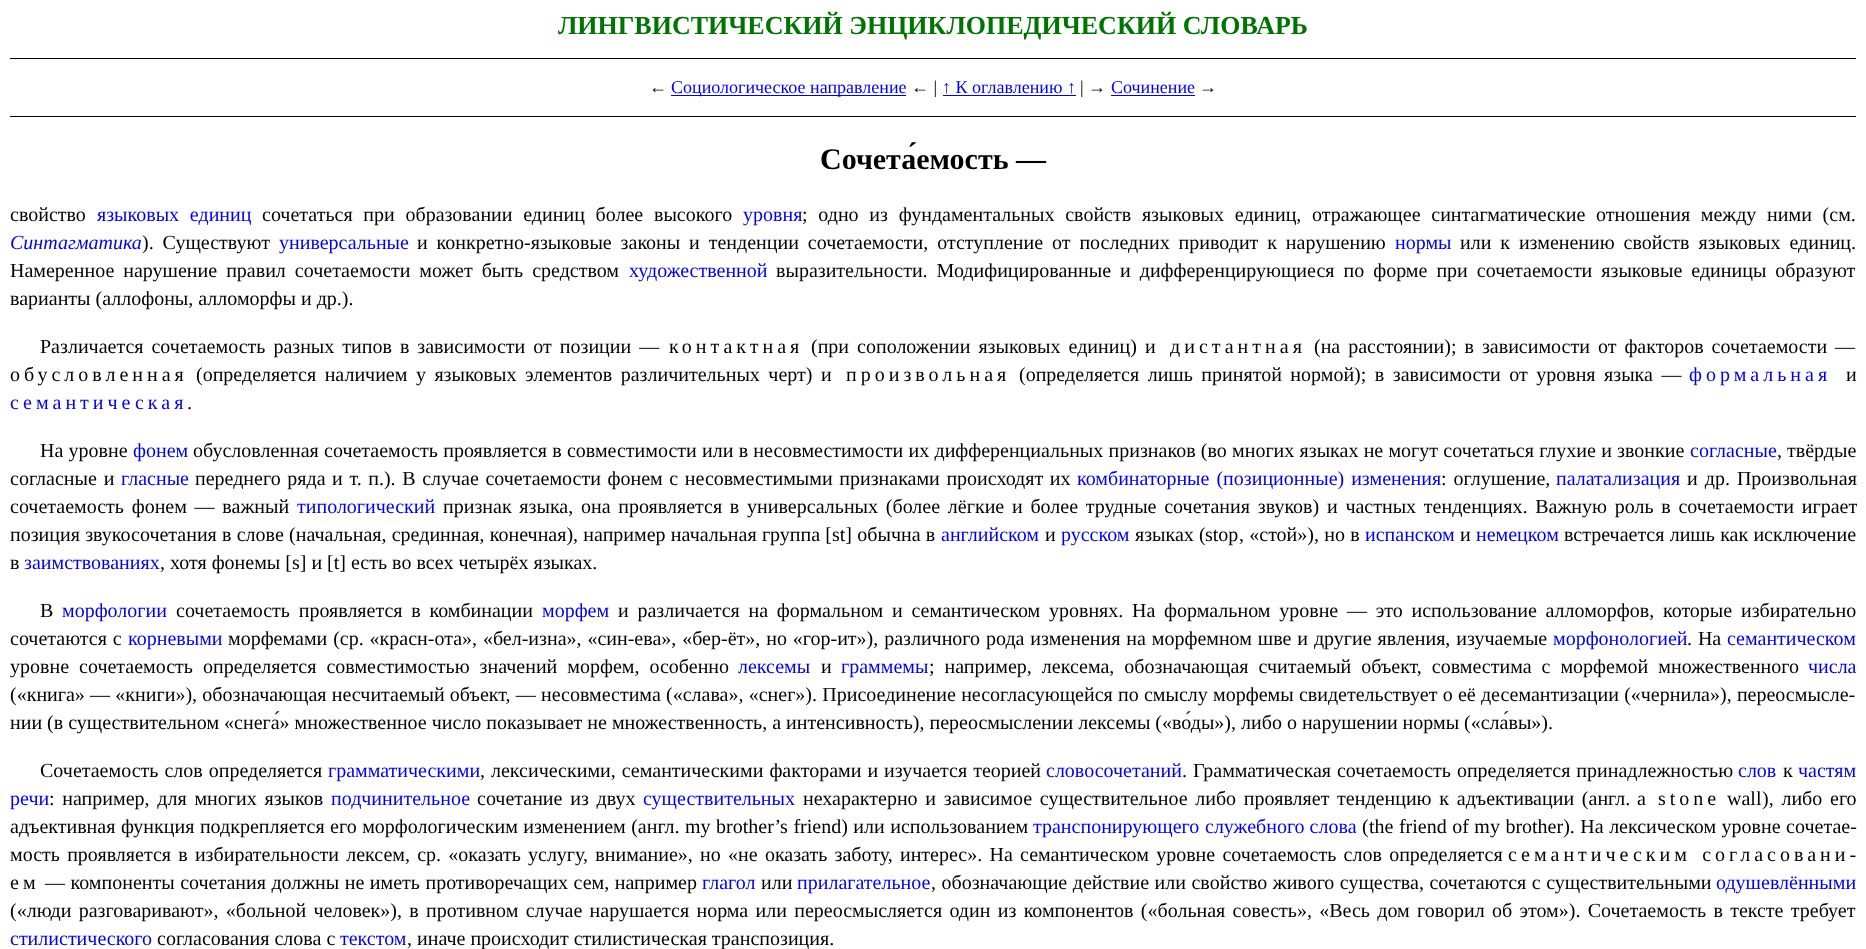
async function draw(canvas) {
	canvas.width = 1866;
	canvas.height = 949;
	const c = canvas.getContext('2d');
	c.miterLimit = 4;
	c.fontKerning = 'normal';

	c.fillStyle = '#fff';
	c.fillRect(0, 0, 1866, 949);
	c.font = 'bold 26px Liberation Serif';
	c.fillStyle = '#007400';
	c.fillText('ЛИНГВИСТИЧЕСКИЙ ЭНЦИКЛОПЕДИЧЕСКИЙ СЛОВАРЬ', 558, 34);
	c.fillStyle = '#000';
	c.fillRect(10, 58, 1846, 1);
	c.fillRect(10, 116, 1846, 1);
	c.font = '18px Liberation Serif';
	c.fillText('←', 649, 93);
	c.fillStyle = '#00e';
	c.fillRect(671, 95, 235, 1);
	c.fillText('Социологическое направление', 671, 93);
	c.fillStyle = '#000';
	c.fillText('← |', 911, 93);
	c.fillStyle = '#00e';
	c.fillText('↑ К оглавлению ↑', 942, 93);
	c.fillRect(943, 95, 133, 1);
	c.fillStyle = '#000';
	c.fillText('| →', 1080, 93);
	c.fillStyle = '#00e';
	c.fillText('Сочинение', 1111, 93);
	c.fillRect(1111, 95, 84, 1);
	c.fillStyle = '#000';
	c.fillText('→', 1199, 93);
	c.font = 'bold 30px Liberation Serif';
	c.fillText('Сочета́емость —', 820, 169);
	c.font = '20px Liberation Serif';
	c.fillText('свойство', 10, 221);
	c.wordSpacing = '5.75px';
	c.fillStyle = '#00e';
	c.fillText('языковых единиц', 97, 221);
	c.fillStyle = '#000';
	c.fillText('сочетаться при образовании единиц более высокого', 262, 221);
	c.wordSpacing = '0px';
	c.fillStyle = '#00e';
	c.fillText('уровня', 743, 221);
	c.wordSpacing = '5.75px';
	c.fillStyle = '#000';
	c.fillText('; одно из фундаментальных свойств языковых единиц, отражающее синтагматические отношения между ними (см.', 802, 221);
	c.wordSpacing = '0px';
	c.font = 'italic 20px Liberation Serif';
	c.fillStyle = '#00e';
	c.fillText('Синтагматика', 10, 249);
	c.wordSpacing = '3.9px';
	c.font = '20px Liberation Serif';
	c.fillStyle = '#000';
	c.fillText('). Существуют', 142, 249);
	c.wordSpacing = '0px';
	c.fillStyle = '#00e';
	c.fillText('универсальные', 279, 249);
	c.wordSpacing = '3.9px';
	c.fillStyle = '#000';
	c.fillText('и конкретно-языковые законы и тенденции сочетаемости, отступление от последних приводит к нарушению', 417, 249);
	c.wordSpacing = '0px';
	c.fillStyle = '#00e';
	c.fillText('нормы', 1395, 249);
	c.wordSpacing = '3.9px';
	c.fillStyle = '#000';
	c.fillText('или к изменению свойств языковых единиц.', 1460, 249);
	c.wordSpacing = '4px';
	c.fillText('Намеренное нарушение правил сочетаемости может быть средством', 10, 277);
	c.wordSpacing = '0px';
	c.fillStyle = '#00e';
	c.fillText('художественной', 629, 277);
	c.wordSpacing = '4px';
	c.fillStyle = '#000';
	c.fillText('выразительности. Модифицированные и дифференцирующиеся по форме при сочетаемости языковые единицы образуют', 776, 277);
	c.wordSpacing = '0px';
	c.fillText('варианты (аллофоны, алломорфы и др.).', 10, 305);
	c.wordSpacing = '3px';
	c.fillText('Различается сочетаемость разных типов в зависимости от позиции —', 40, 353);
	c.letterSpacing = '4px';
	c.wordSpacing = '0px';
	c.fillText('контактная', 669, 353);
	c.letterSpacing = '0px';
	c.wordSpacing = '3px';
	c.fillText('(при соположении языковых единиц)', 811, 353);
	c.wordSpacing = '0px';
	c.fillText('и', 1145, 353);
	c.letterSpacing = '4px';
	c.fillText('дистантная', 1170, 353);
	c.letterSpacing = '0px';
	c.wordSpacing = '3px';
	c.fillText('(на расстоянии); в зависимости от факторов сочетаемости —', 1314, 353);
	c.letterSpacing = '4px';
	c.wordSpacing = '0px';
	c.fillText('обусловленная', 10, 381);
	c.letterSpacing = '0px';
	c.wordSpacing = '3.5px';
	c.fillText('(определяется наличием у языковых элементов различительных черт)', 196, 381);
	c.wordSpacing = '0px';
	c.fillText('и', 821, 381);
	c.letterSpacing = '4px';
	c.fillText('произвольная', 846, 381);
	c.letterSpacing = '0px';
	c.wordSpacing = '3.5px';
	c.fillText('(определяется лишь принятой нормой); в зависимости от уровня языка —', 1019, 381);
	c.letterSpacing = '4px';
	c.wordSpacing = '0px';
	c.fillStyle = '#00e';
	c.fillText('формальная', 1689, 381);
	c.letterSpacing = '0px';
	c.fillStyle = '#000';
	c.fillText('и', 1846, 381);
	c.letterSpacing = '4px';
	c.fillStyle = '#00e';
	c.fillText('семантическая', 10, 409);
	c.letterSpacing = '0px';
	c.fillStyle = '#000';
	c.fillText('.', 187, 409);
	c.wordSpacing = '0.25px';
	c.fillText('На уровне', 40, 457);
	c.wordSpacing = '0px';
	c.fillStyle = '#00e';
	c.fillText('фонем', 133, 457);
	c.wordSpacing = '0.25px';
	c.fillStyle = '#000';
	c.fillText('обусловленная сочетаемость проявляется в совместимости или в несовместимости их дифференциальных признаков (во многих языках не могут сочетаться глухие и звонкие', 193, 457);
	c.wordSpacing = '0px';
	c.fillStyle = '#00e';
	c.fillText('согласные', 1690, 457);
	c.fillStyle = '#000';
	c.fillText(', твёрдые', 1777, 457);
	c.wordSpacing = '2px';
	c.fillText('согласные и', 10, 485);
	c.wordSpacing = '0px';
	c.fillStyle = '#00e';
	c.fillText('гласные', 121, 485);
	c.wordSpacing = '1.6px';
	c.fillStyle = '#000';
	c.fillText('переднего ряда и т. п.). В случае сочетаемости фонем с несовместимыми признаками происходят их', 195, 485);
	c.wordSpacing = '2px';
	c.fillStyle = '#00e';
	c.fillText('комбинаторные (позиционные) изменения', 1077, 485);
	c.fillStyle = '#000';
	c.fillText(': оглушение,', 1441, 485);
	c.wordSpacing = '0px';
	c.fillStyle = '#00e';
	c.fillText('палатализация', 1556, 485);
	c.wordSpacing = '2px';
	c.fillStyle = '#000';
	c.fillText('и др. Произвольная', 1687, 485);
	c.wordSpacing = '2.75px';
	c.fillText('сочетаемость фонем — важный', 10, 513);
	c.wordSpacing = '0px';
	c.fillStyle = '#00e';
	c.fillText('типологический', 297, 513);
	c.wordSpacing = '2.75px';
	c.fillStyle = '#000';
	c.fillText('признак языка, она проявляется в универсальных (более лёгкие и более трудные сочетания звуков) и частных тенденциях. Важную роль в сочетаемости играет', 443, 513);
	c.wordSpacing = '0.25px';
	c.fillText('позиция звукосочетания в слове (начальная, срединная, конечная), например начальная группа [st] обычна в', 10, 541);
	c.wordSpacing = '0px';
	c.fillStyle = '#00e';
	c.fillText('английском', 941, 541);
	c.fillStyle = '#000';
	c.fillText('и', 1045, 541);
	c.fillStyle = '#00e';
	c.fillText('русском', 1061, 541);
	c.wordSpacing = '0.25px';
	c.fillStyle = '#000';
	c.fillText('языках (', 1135, 541);
	c.wordSpacing = '0px';
	c.fillText('stop', 1205, 541);
	c.wordSpacing = '0.25px';
	c.fillText(', «стой»), но в', 1239, 541);
	c.wordSpacing = '0px';
	c.fillStyle = '#00e';
	c.fillText('испанском', 1365, 541);
	c.fillStyle = '#000';
	c.fillText('и', 1460, 541);
	c.fillStyle = '#00e';
	c.fillText('немецком', 1476, 541);
	c.wordSpacing = '0.25px';
	c.fillStyle = '#000';
	c.fillText('встречается лишь как исключение', 1564, 541);
	c.wordSpacing = '0px';
	c.fillText('в', 10, 569);
	c.fillStyle = '#00e';
	c.fillText('заимствованиях', 24, 569);
	c.fillStyle = '#000';
	c.fillText(', хотя фонемы [s] и [t] есть во всех четырёх языках.', 160, 569);
	c.fillText('В', 40, 617);
	c.fillStyle = '#00e';
	c.fillText('морфологии', 62, 617);
	c.wordSpacing = '3.75px';
	c.fillStyle = '#000';
	c.fillText('сочетаемость проявляется в комбинации', 176, 617);
	c.wordSpacing = '0px';
	c.fillStyle = '#00e';
	c.fillText('морфем', 542, 617);
	c.wordSpacing = '3.75px';
	c.fillStyle = '#000';
	c.fillText('и различается на формальном и семантическом уровнях. На формальном уровне — это использование алломорфов, которые избирательно', 618, 617);
	c.wordSpacing = '0.9px';
	c.fillText('сочетаются с', 10, 645);
	c.wordSpacing = '0px';
	c.fillStyle = '#00e';
	c.fillText('корневыми', 128, 645);
	c.wordSpacing = '0.9px';
	c.fillStyle = '#000';
	c.fillText('морфемами (ср. «красн-ота», «бел-изна», «син-ева», «бер-ёт», но «гор-ит»), различного рода изменения на морфемном шве и другие явления, изучаемые', 228, 645);
	c.wordSpacing = '0px';
	c.fillStyle = '#00e';
	c.fillText('морфонологией', 1553, 645);
	c.wordSpacing = '0.9px';
	c.fillStyle = '#000';
	c.fillText('. На', 1687, 645);
	c.wordSpacing = '0px';
	c.fillStyle = '#00e';
	c.fillText('семантическом', 1727, 645);
	c.wordSpacing = '5px';
	c.fillStyle = '#000';
	c.fillText('уровне сочетаемость определяется совместимостью значений морфем, особенно', 10, 673);
	c.wordSpacing = '0px';
	c.fillStyle = '#00e';
	c.fillText('лексемы', 738, 673);
	c.fillStyle = '#000';
	c.fillText('и', 821, 673);
	c.fillStyle = '#00e';
	c.fillText('граммемы', 841, 673);
	c.wordSpacing = '5px';
	c.fillStyle = '#000';
	c.fillText('; например, лексема, обозначающая считаемый объект, совместима с морфемой множественного', 929, 673);
	c.wordSpacing = '0px';
	c.fillStyle = '#00e';
	c.fillText('числа', 1808, 673);
	c.wordSpacing = '0.25px';
	c.fillStyle = '#000';
	c.fillText('(«книга» — «книги»), обозначающая несчитаемый объект, — несовместима («слава», «снег»). Присоединение несогласующейся по смыслу морфемы свидетельствует о её десемантизации («чернила»), переосмысле-', 10, 701);
	c.wordSpacing = '0px';
	c.fillText('нии (в существительном «снега́» множественное число показывает не множественность, а интенсивность), переосмыслении лексемы («во́ды»), либо о нарушении нормы («сла́вы»).', 10, 729);
	c.wordSpacing = '1px';
	c.fillText('Сочетаемость слов определяется', 40, 777);
	c.wordSpacing = '0px';
	c.fillStyle = '#00e';
	c.fillText('грамматическими', 328, 777);
	c.wordSpacing = '1px';
	c.fillStyle = '#000';
	c.fillText(', лексическими, семантическими факторами и изучается теорией', 480, 777);
	c.wordSpacing = '0px';
	c.fillStyle = '#00e';
	c.fillText('словосочетаний', 1046, 777);
	c.wordSpacing = '1px';
	c.fillStyle = '#000';
	c.fillText('. Грамматическая сочетаемость определяется принадлежностью', 1182, 777);
	c.wordSpacing = '0px';
	c.fillStyle = '#00e';
	c.fillText('слов', 1738, 777);
	c.fillStyle = '#000';
	c.fillText('к', 1783, 777);
	c.fillStyle = '#00e';
	c.fillText('частям', 1798, 777);
	c.fillText('речи', 10, 805);
	c.wordSpacing = '2.75px';
	c.fillStyle = '#000';
	c.fillText(': например, для многих языков', 49, 805);
	c.wordSpacing = '0px';
	c.fillStyle = '#00e';
	c.fillText('подчинительное', 331, 805);
	c.wordSpacing = '2.75px';
	c.fillStyle = '#000';
	c.fillText('сочетание из двух', 477, 805);
	c.wordSpacing = '0px';
	c.fillStyle = '#00e';
	c.fillText('существительных', 643, 805);
	c.wordSpacing = '2.75px';
	c.fillStyle = '#000';
	c.fillText('нехарактерно и зависимое существительное либо проявляет тенденцию к адъективации (англ.', 803, 805);
	c.wordSpacing = '0px';
	c.fillText('a', 1637, 805);
	c.letterSpacing = '4px';
	c.fillText('stone', 1658, 805);
	c.letterSpacing = '0px';
	c.fillText('wall', 1727, 805);
	c.wordSpacing = '2.75px';
	c.fillText('), либо его', 1762, 805);
	c.wordSpacing = '0.5px';
	c.fillText('адъективная функция подкрепляется его морфологическим изменением (англ.', 10, 833);
	c.fillText('my brother’s friend) или использованием', 685, 833);
	c.wordSpacing = '0px';
	c.fillStyle = '#00e';
	c.fillText('транспонирующего', 1033, 833);
	c.fillText('служебного слова', 1205, 833);
	c.fillStyle = '#000';
	c.fillText('(', 1362, 833);
	c.wordSpacing = '0.5px';
	c.fillText('the friend of my brother). На лексическом уровне сочетае-', 1369, 833);
	c.wordSpacing = '2.25px';
	c.fillText('мость проявляется в избирательности лексем, ср. «оказать услугу, внимание», но «не оказать заботу, интерес». На семантическом уровне сочетаемость слов определяется', 10, 861);
	c.letterSpacing = '4px';
	c.fillText('семантическим согласовани-', 1508, 861);
	c.wordSpacing = '0px';
	c.fillText('ем', 10, 889);
	c.letterSpacing = '0px';
	c.wordSpacing = '0.5px';
	c.fillText('— компоненты сочетания должны не иметь противоречащих сем, например', 45, 889);
	c.wordSpacing = '0px';
	c.fillStyle = '#00e';
	c.fillText('глагол', 702, 889);
	c.fillStyle = '#000';
	c.fillText('или', 761, 889);
	c.fillStyle = '#00e';
	c.fillText('прилагательное', 797, 889);
	c.wordSpacing = '0.5px';
	c.fillStyle = '#000';
	c.fillText(', обозначающие действие или свойство живого существа, сочетаются с существительными', 931, 889);
	c.wordSpacing = '0px';
	c.fillStyle = '#00e';
	c.fillText('одушевлёнными', 1716, 889);
	c.wordSpacing = '2.3px';
	c.fillStyle = '#000';
	c.fillText('(«люди разговаривают», «больной человек»), в противном случае нарушается норма или переосмысляется один из компонентов («больная совесть», «Весь дом говорил об этом»). Сочетаемость в тексте требует', 10, 917);
	c.wordSpacing = '0px';
	c.fillStyle = '#00e';
	c.fillText('стилистического', 10, 945);
	c.fillStyle = '#000';
	c.fillText('согласования слова с', 157, 945);
	c.fillStyle = '#00e';
	c.fillText('текстом', 340, 945);
	c.fillStyle = '#000';
	c.fillText(', иначе происходит стилистическая транспозиция.', 407, 945);
}

draw(document.querySelector('canvas'));
